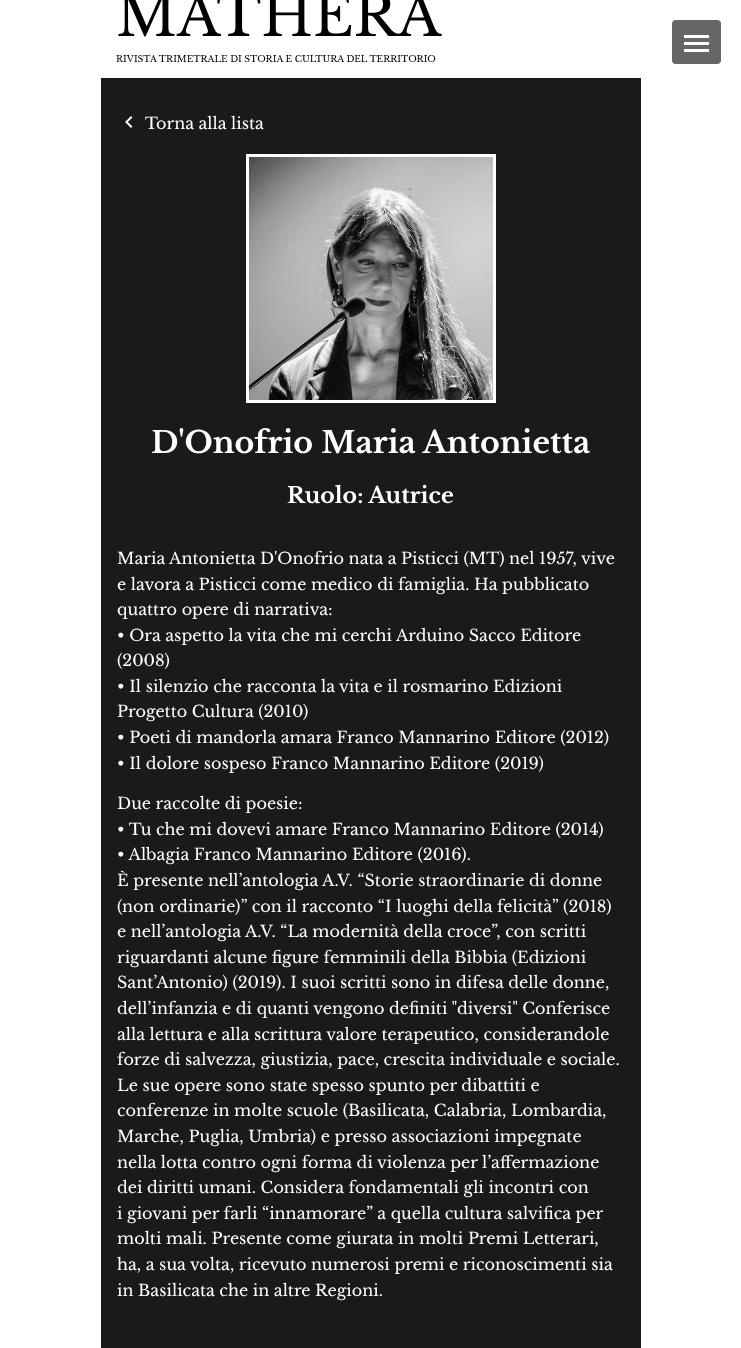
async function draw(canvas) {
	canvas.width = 741;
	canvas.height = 1348;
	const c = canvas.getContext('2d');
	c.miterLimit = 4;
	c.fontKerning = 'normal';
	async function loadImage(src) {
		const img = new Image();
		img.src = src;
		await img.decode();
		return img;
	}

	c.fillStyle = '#fff';
	c.fillRect(0, 0, 741, 1348);
	c.font = '56px Libre Baskerville';
	c.fillStyle = '#000';
	c.fillText('MATHERA', 116, 36);
	c.font = '9px Libre Baskerville';
	c.fillText('RIVISTA TRIMETRALE DI STORIA E CULTURA DEL TERRITORIO', 116, 62);
	c.fillStyle = '#666';
	c.beginPath();
	c.roundRect(672, 20, 49, 44, 4);
	c.fill();
	for (const [x, y, w, h, color] of [
		[684, 35, 25, 3, '#fff'],
		[684, 42, 25, 3, '#fff'],
		[684, 49, 25, 3, '#fff'],
		[101, 78, 540, 1270, '#1a1a1a'],
	]) {
		c.fillStyle = color;
		c.fillRect(x, y, w, h);
	}
	c.drawImage(await loadImage('img1.png'), 125, 116, 8, 12);
	c.font = '16px Libre Baskerville';
	c.fillStyle = '#fff';
	c.fillText('Torna alla lista', 145, 129);
	c.strokeStyle = '#fff';
	c.lineWidth = 3;
	c.strokeRect(247.5, 155.5, 247, 246);
	c.drawImage(await loadImage('img2.png'), 249, 157, 244, 243);
	c.font = 'bold 30px Libre Baskerville';
	c.fillText('D\'Onofrio Maria Antonietta', 151, 453);
	c.font = 'bold 22px Libre Baskerville';
	c.fillText('Ruolo: Autrice', 287, 503);
	c.font = '16px Libre Baskerville';
	for (const [text, x, y] of [
		['Maria Antonietta D\'Onofrio nata a Pisticci (MT) nel 1957, vive', 117, 564],
		['e lavora a Pisticci come medico di famiglia. Ha pubblicato', 117, 590],
		['quattro opere di narrativa:', 117, 615],
		['• Ora aspetto la vita che mi cerchi Arduino Sacco Editore', 117, 641],
		['(2008)', 117, 666],
		['• Il silenzio che racconta la vita e il rosmarino Edizioni', 117, 692],
		['Progetto Cultura (2010)', 117, 717],
		['• Poeti di mandorla amara Franco Mannarino Editore (2012)', 117, 743],
		['• Il dolore sospeso Franco Mannarino Editore (2019)', 117, 769],
		['Due raccolte di poesie:', 117, 809],
		['• Tu che mi dovevi amare Franco Mannarino Editore (2014)', 117, 835],
		['• Albagia Franco Mannarino Editore (2016).', 117, 860],
		['È presente nell’antologia A.V. “Storie straordinarie di donne', 117, 886],
		['(non ordinarie)” con il racconto “I luoghi della felicità” (2018)', 117, 912],
		['e nell’antologia A.V. “La modernità della croce”, con scritti', 117, 937],
		['riguardanti alcune figure femminili della Bibbia (Edizioni', 117, 963],
		['Sant’Antonio) (2019). I suoi scritti sono in difesa delle donne,', 117, 988],
		['dell’infanzia e di quanti vengono definiti "diversi" Conferisce', 117, 1014],
		['alla lettura e alla scrittura valore terapeutico, considerandole', 117, 1040],
		['forze di salvezza, giustizia, pace, crescita individuale e sociale.', 117, 1065],
		['Le sue opere sono state spesso spunto per dibattiti e', 117, 1091],
		['conferenze in molte scuole (Basilicata, Calabria, Lombardia,', 117, 1116],
		['Marche, Puglia, Umbria) e presso associazioni impegnate', 117, 1142],
		['nella lotta contro ogni forma di violenza per l’affermazione', 117, 1168],
		['dei diritti umani. Considera fondamentali gli incontri con', 117, 1193],
		['i giovani per farli “innamorare” a quella cultura salvifica per', 117, 1219],
		['molti mali. Presente come giurata in molti Premi Letterari,', 117, 1244],
		['ha, a sua volta, ricevuto numerosi premi e riconoscimenti sia', 117, 1270],
		['in Basilicata che in altre Regioni.', 117, 1296],
	]) {
		c.fillText(text, x, y);
	}
}

draw(document.querySelector('canvas'));
